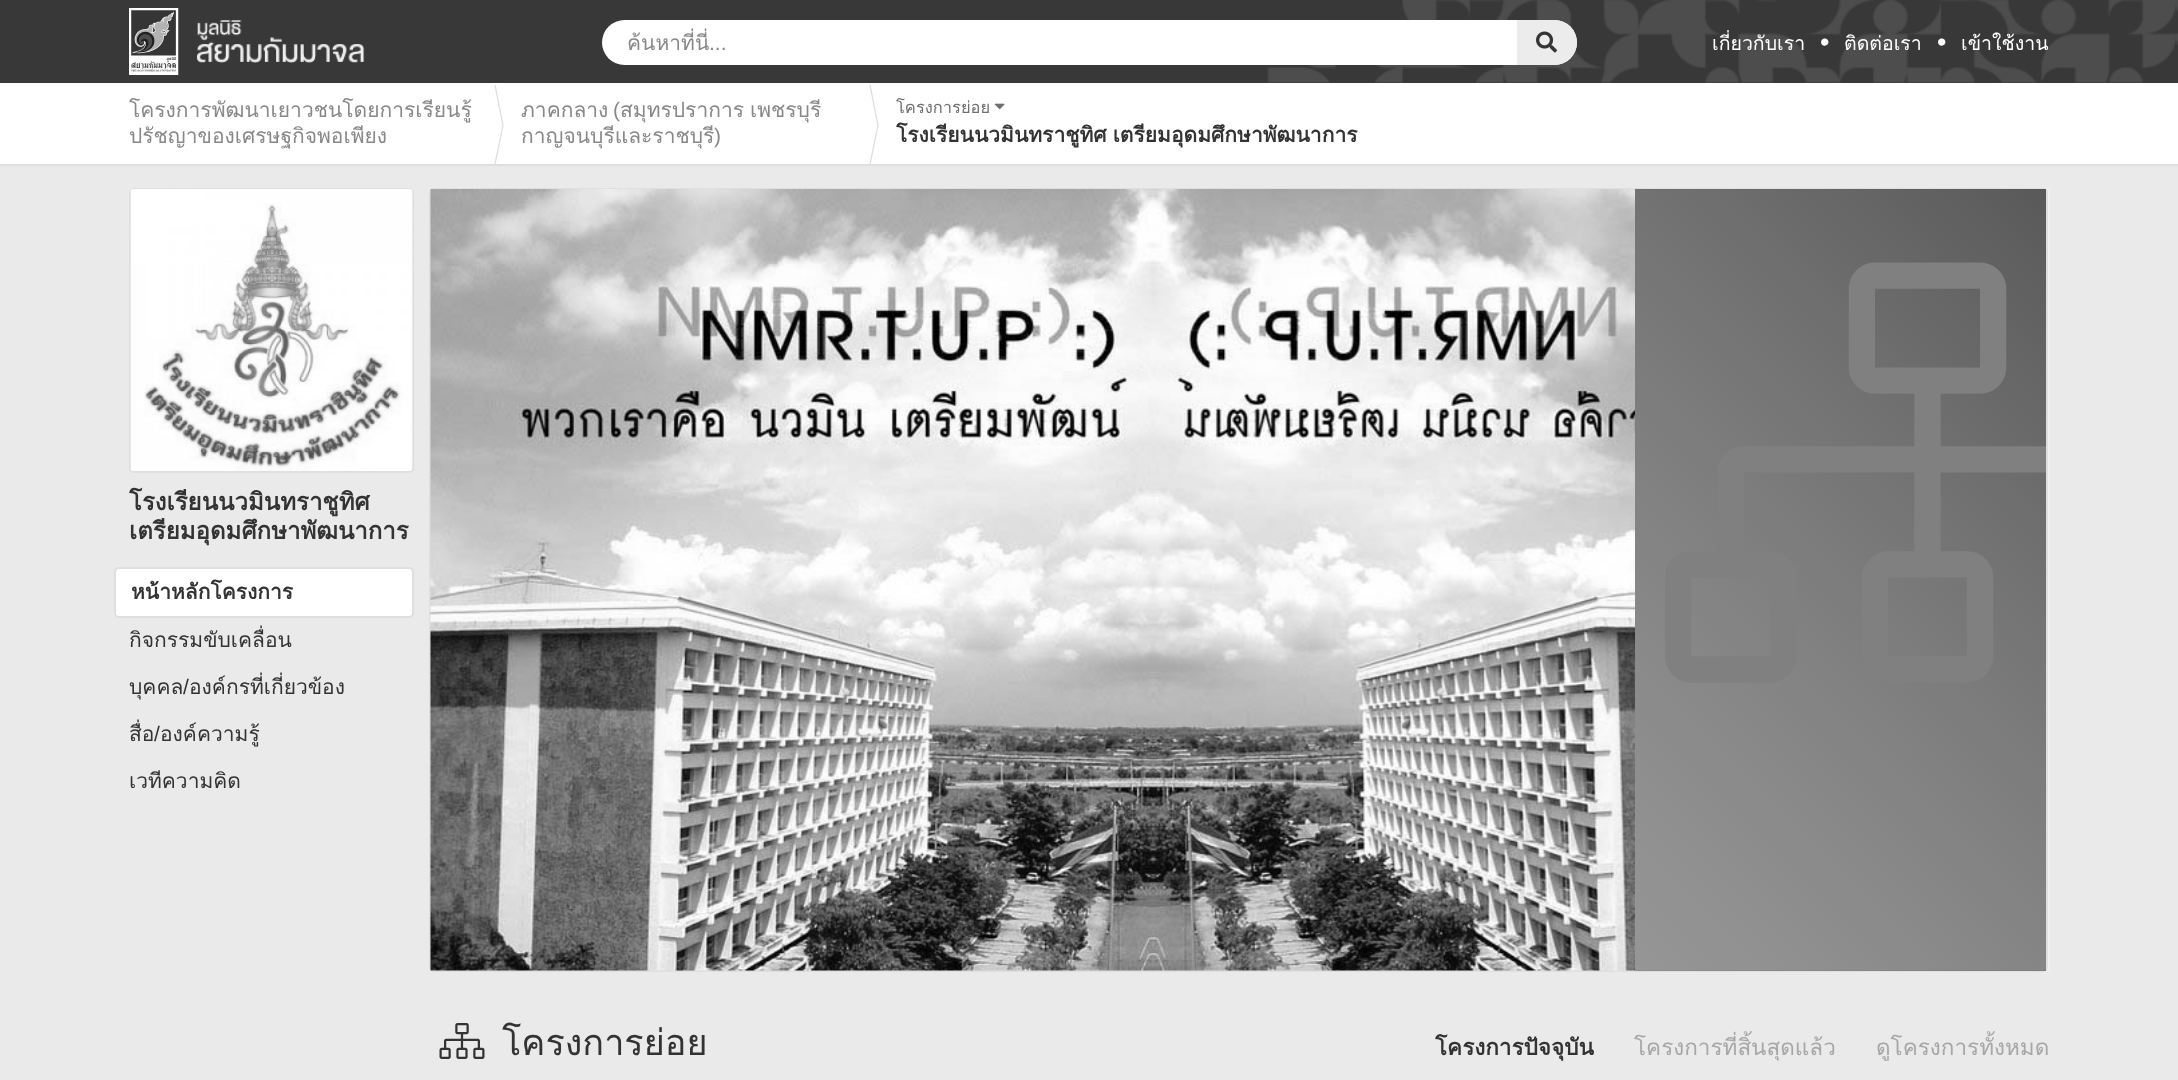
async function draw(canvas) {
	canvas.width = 2178;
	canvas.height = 1080;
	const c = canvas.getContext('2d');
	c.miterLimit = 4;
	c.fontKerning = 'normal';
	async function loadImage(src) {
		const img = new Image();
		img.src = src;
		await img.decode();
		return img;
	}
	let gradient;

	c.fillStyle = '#eaeaea';
	c.fillRect(0, 0, 2178, 1080);
	c.fillStyle = '#383838';
	c.fillRect(0, 0, 2178, 83);
	c.drawImage(await loadImage('img1.png'), 1267, 0, 911, 83);
	c.drawImage(await loadImage('img2.png'), 129, 8, 50, 67);
	c.drawImage(await loadImage('img3.png'), 197, 20, 168, 43);
	c.fillStyle = '#fff';
	c.beginPath();
	c.roundRect(602, 20, 975, 45, 22.5);
	c.fill();
	c.save();
	c.beginPath();
	c.rect(627, 26, 827, 33);
	c.clip();
	c.font = '21px Loma';
	c.fillStyle = '#888';
	c.fillText('ค้นหาที่นี่', 627, 50);
	c.restore();
	c.font = '21px Liberation Sans';
	c.fillStyle = '#888';
	c.fillText('...', 709, 50);
	c.fillStyle = '#ececec';
	c.beginPath();
	c.roundRect(1517, 20, 60, 45, [0, 22.5, 22.5, 0]);
	c.fill();
	c.drawImage(await loadImage('img4.png'), 1536, 31, 21, 22);
	c.font = '19.5px Loma';
	c.fillStyle = '#fff';
	c.fillText('เกี่ยวกับเรา', 1712, 50);
	c.font = '27px Liberation Sans';
	c.fillText('•', 1820, 51);
	c.font = '19.5px Loma';
	c.fillText('ติดต่อเรา', 1844, 50);
	c.font = '27px Liberation Sans';
	c.fillText('•', 1937, 51);
	c.font = '19.5px Loma';
	c.fillText('เข้าใช้งาน', 1961, 50);
	c.fillRect(0, 83, 2178, 81);
	c.fillStyle = '#dfdfdf';
	c.fillRect(0, 164, 2178, 2);
	c.font = '21px Loma';
	c.fillStyle = '#888';
	c.fillText('โครงการพัฒนาเยาวชนโดยการเรียนรู้', 129, 117);
	c.fillText('ปรัชญาของเศรษฐกิจพอเพียง', 129, 143);
	c.beginPath();
	c.moveTo(495, 85);
	c.lineTo(503, 125.5);
	c.lineTo(495, 164);
	c.strokeStyle = '#dfdfdf';
	c.lineWidth = 1.3;
	c.stroke();
	c.fillText('ภาคกลาง', 521, 117);
	c.font = '21px Liberation Sans';
	c.fillText('(', 613, 117);
	c.wordSpacing = '-1px';
	c.font = '21px Loma';
	c.fillText('สมุทรปราการ เพชรบุรี', 620, 117);
	c.wordSpacing = '0px';
	c.fillText('กาญจนบุรีและราชบุรี', 521, 143);
	c.font = '21px Liberation Sans';
	c.fillText(')', 714, 143);
	c.beginPath();
	c.moveTo(870, 85);
	c.lineTo(878, 125.5);
	c.lineTo(870, 164);
	c.stroke();
	c.font = '16.5px Loma';
	c.fillStyle = '#6f6f6f';
	c.fillText('โครงการย่อย', 896, 113);
	c.drawImage(await loadImage('img5.png'), 994, 103, 11, 7);
	c.wordSpacing = '-1px';
	c.font = 'bold 21px Loma';
	c.fillStyle = '#333';
	c.fillText('โรงเรียนนวมินทราชูทิศ เตรียมอุดมศึกษาพัฒนาการ', 896, 142);
	c.beginPath();
	c.roundRect(130, 189, 283, 283, 4);
	c.lineWidth = 2;
	c.stroke();
	c.drawImage(await loadImage('img6.png'), 130, 189, 283, 282);
	c.wordSpacing = '0px';
	c.font = 'bold 24px Loma';
	c.fillText('โรงเรียนนวมินทราชูทิศ', 129, 510);
	c.fillText('เตรียมอุดมศึกษาพัฒนาการ', 129, 539);
	c.fillStyle = '#fff';
	c.beginPath();
	c.roundRect(115, 568, 298, 49, 4);
	c.fill();
	c.stroke();
	c.font = 'bold 21px Loma';
	c.fillStyle = '#333';
	c.fillText('หน้าหลักโครงการ', 131, 599);
	c.font = '21px Loma';
	c.fillText('กิจกรรมขับเคลื่อน', 129, 647);
	c.fillText('บุคคล', 129, 694);
	c.font = '21px Liberation Sans';
	c.fillText('/', 183, 694);
	c.font = '21px Loma';
	c.fillText('องค์กรที่เกี่ยวข้อง', 189, 694);
	c.fillText('สื่อ', 129, 741);
	c.font = '21px Liberation Sans';
	c.fillText('/', 154, 741);
	c.font = '21px Loma';
	c.fillText('องค์ความรู้', 160, 741);
	c.fillText('เวทีความคิด', 129, 788);
	c.fillStyle = '#f0f0f0';
	c.fillRect(2048, 188, 2, 784);
	c.fillStyle = '#fff';
	c.beginPath();
	c.roundRect(430, 189, 1617, 782, 4);
	c.fill();
	c.stroke();
	c.drawImage(await loadImage('img7.png'), 430, 189, 1205, 782);
	c.fillStyle = '#59595980';
	c.fillRect(1635, 189, 411, 782);
	gradient = c.createLinearGradient(1542, 878, 2139, 282);
	gradient.addColorStop(0, '#80808080');
	gradient.addColorStop(1, '#595959');
	c.fillStyle = gradient;
	c.fillRect(1635, 189, 411, 782);
	c.drawImage(await loadImage('img8.png'), 1665, 262, 381, 421);
	c.drawImage(await loadImage('img9.png'), 439, 1023, 46, 36);
	c.font = '36px Loma';
	c.fillStyle = '#333';
	c.fillText('โครงการย่อย', 502, 1055);
	c.font = 'bold 22.5px Loma';
	c.fillText('โครงการปัจจุบัน', 1435, 1055);
	c.font = '22.5px Loma';
	c.fillStyle = '#a7a7a7';
	c.fillText('โครงการที่สิ้นสุดแล้ว', 1634, 1055);
	c.fillText('ดูโครงการทั้งหมด', 1876, 1055);
}

draw(document.querySelector('canvas'));
